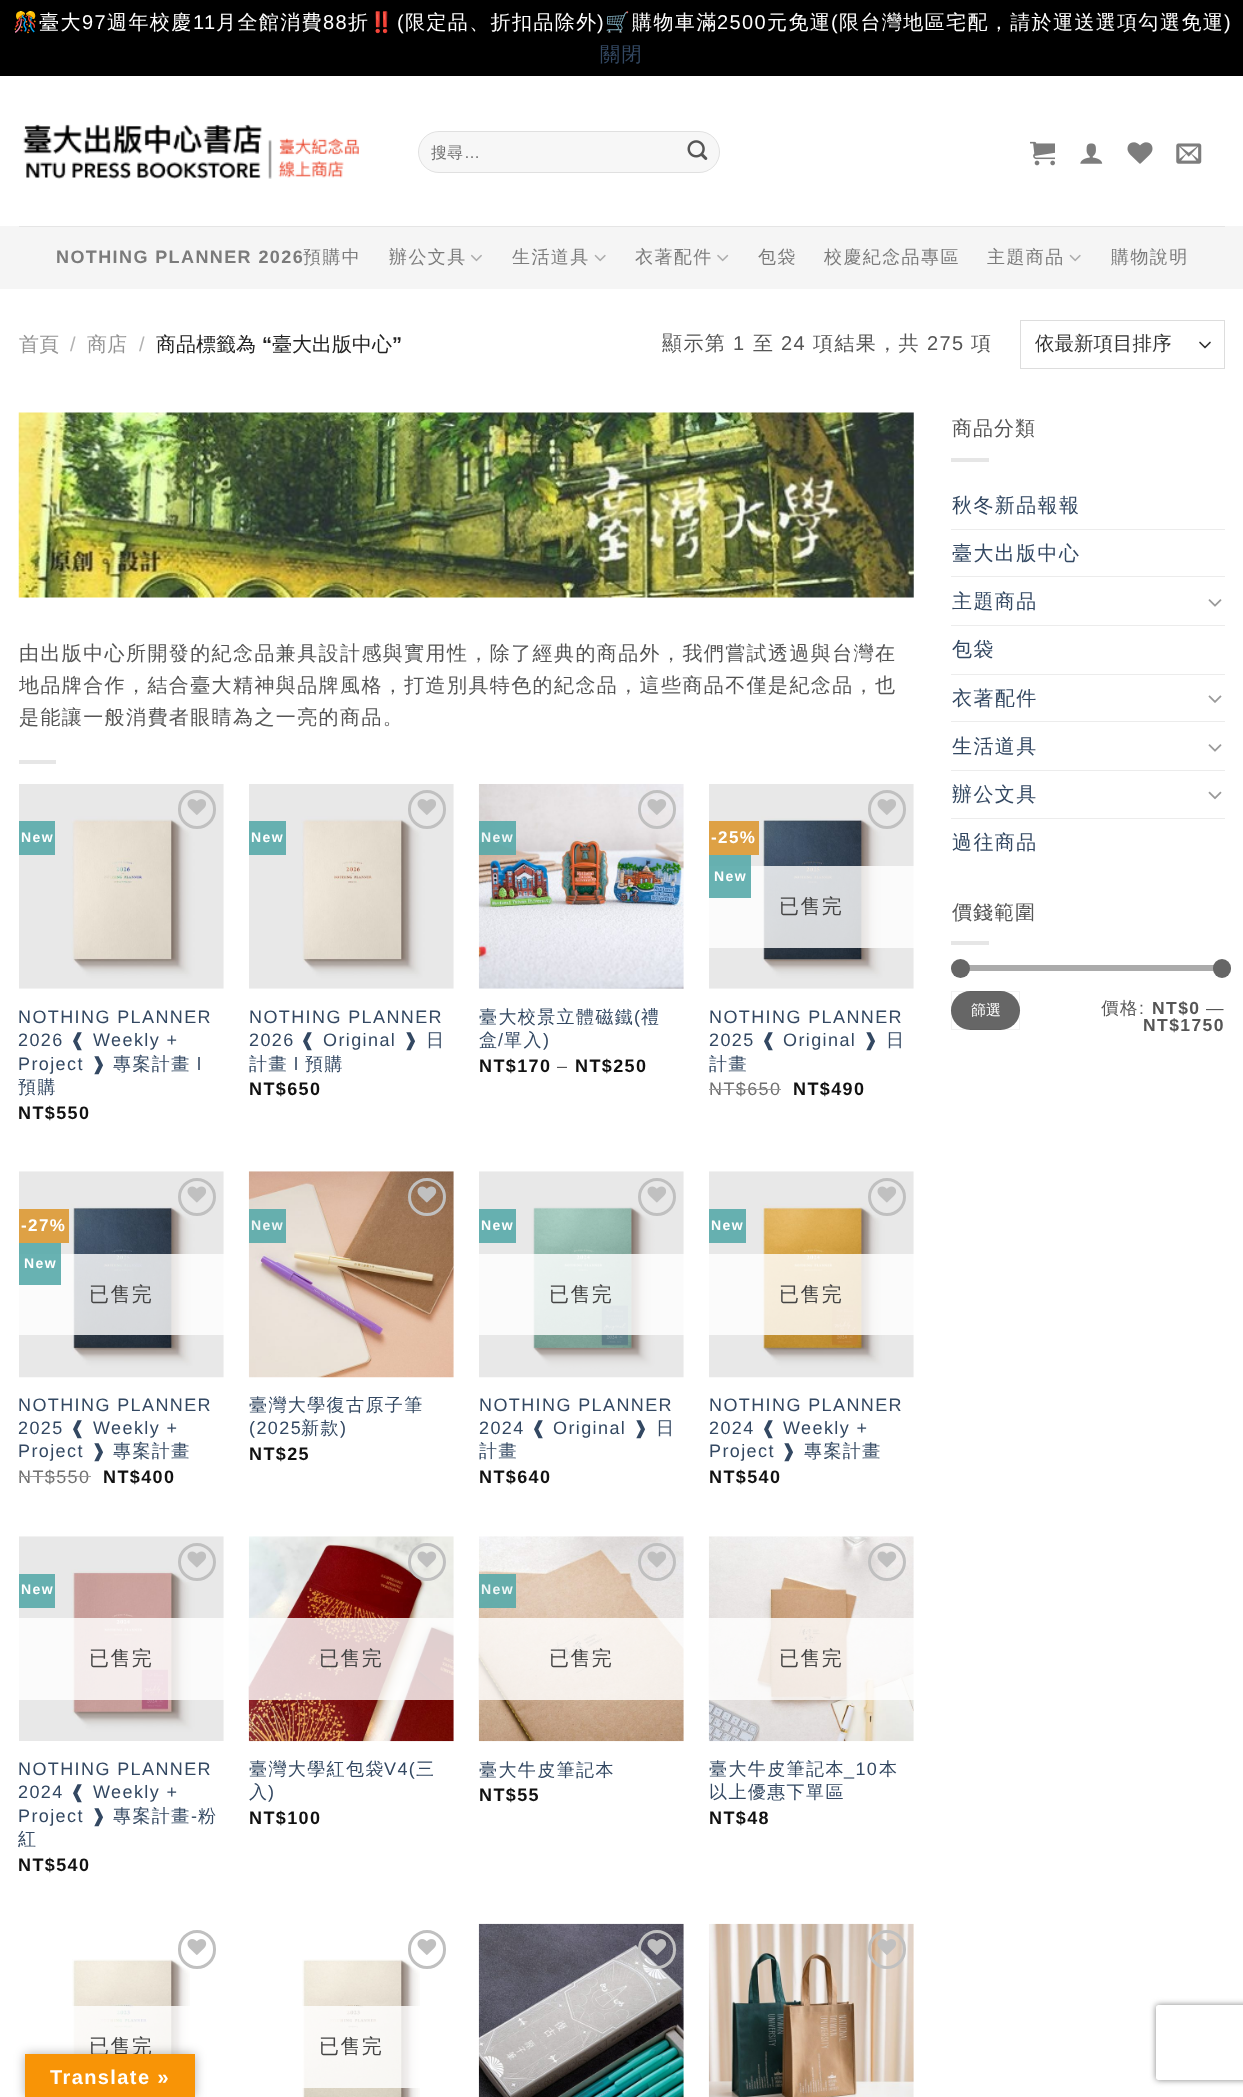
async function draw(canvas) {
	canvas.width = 1243;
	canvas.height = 2097;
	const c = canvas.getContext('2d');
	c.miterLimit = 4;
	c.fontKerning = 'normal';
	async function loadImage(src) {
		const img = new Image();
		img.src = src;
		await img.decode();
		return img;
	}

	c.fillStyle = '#000';
	c.fillRect(0, 0, 1243, 2097);
	c.letterSpacing = '1.4px';
	c.font = '20px Noto Color Emoji';
	c.fillStyle = '#fff';
	c.fillText('🎊', 13, 29);
	c.font = '500 20px WenQuanYi Zen Hei';
	c.fillText('臺大', 39, 29);
	c.font = '20px Liberation Sans';
	c.fillText('97', 82, 29);
	c.font = '500 20px WenQuanYi Zen Hei';
	c.fillText('週年校慶', 107, 29);
	c.font = '20px Liberation Sans';
	c.fillText('11', 193, 29);
	c.font = '500 20px WenQuanYi Zen Hei';
	c.fillText('月全館消費', 216, 29);
	c.font = '20px Liberation Sans';
	c.fillText('88', 323, 29);
	c.font = '500 20px WenQuanYi Zen Hei';
	c.fillText('折', 348, 29);
	c.font = '20px Noto Color Emoji';
	c.fillText('‼️', 369, 29);
	c.font = '20px Liberation Sans';
	c.fillText('(', 397, 29);
	c.font = '500 20px WenQuanYi Zen Hei';
	c.fillText('限定品、折扣品除外', 405, 29);
	c.font = '20px Liberation Sans';
	c.fillText(')', 597, 29);
	c.font = '20px Noto Color Emoji';
	c.fillText('🛒', 605, 29);
	c.font = '500 20px WenQuanYi Zen Hei';
	c.fillText('購物車滿', 632, 29);
	c.font = '20px Liberation Sans';
	c.fillText('2500', 717, 29);
	c.font = '500 20px WenQuanYi Zen Hei';
	c.fillText('元免運', 767, 29);
	c.font = '20px Liberation Sans';
	c.fillText('(', 831, 29);
	c.font = '500 20px WenQuanYi Zen Hei';
	c.fillText('限台灣地區宅配，請於運送選項勾選免運', 839, 29);
	c.font = '20px Liberation Sans';
	c.fillText(')', 1224, 29);
	c.font = '500 20px WenQuanYi Zen Hei';
	c.fillStyle = '#334862';
	c.fillText('關閉', 600, 61);
	c.fillStyle = '#fff';
	c.fillRect(0, 76, 1243, 2021);
	c.drawImage(await loadImage('img1.png'), 23, 124, 336, 55);
	c.fillStyle = '#f7f7f7';
	c.beginPath();
	c.roundRect(418, 131, 302, 42, 21);
	c.fill();
	c.beginPath();
	c.roundRect(418.5, 131.5, 301, 41, 20.5);
	c.strokeStyle = '#00000017';
	c.stroke();
	c.letterSpacing = '0px';
	c.font = '500 16px WenQuanYi Zen Hei';
	c.fillStyle = '#707070';
	c.fillText('搜尋', 431, 158);
	c.font = '16px Liberation Sans';
	c.fillText('…', 464, 158);
	c.drawImage(await loadImage('img2.png'), 687, 140, 21, 20);
	c.drawImage(await loadImage('img3.png'), 1030, 141, 25, 25);
	c.drawImage(await loadImage('img4.png'), 1080, 143, 23, 21);
	c.drawImage(await loadImage('img5.png'), 1127, 142, 26, 22);
	c.drawImage(await loadImage('img6.png'), 1176, 143, 26, 21);
	c.fillStyle = '#f5f5f5';
	c.fillRect(0, 226, 1243, 63);
	c.fillStyle = '#e5e5e5';
	c.fillRect(19, 226, 1206, 1);
	c.letterSpacing = '1.4px';
	c.font = 'bold 18px Liberation Sans';
	c.fillStyle = '#7b7b7b';
	c.fillText('NOTHING PLANNER 2026', 56, 263);
	c.font = '500 18px WenQuanYi Zen Hei';
	c.fillText('預購中', 303, 263);
	c.fillText('辦公文具', 389, 263);
	c.drawImage(await loadImage('img7.png'), 471, 254, 11, 8);
	c.fillText('生活道具', 512, 263);
	c.drawImage(await loadImage('img8.png'), 594, 254, 12, 8);
	c.fillText('衣著配件', 635, 263);
	c.drawImage(await loadImage('img9.png'), 717, 254, 12, 8);
	for (const [text, x, y] of [
		['包袋', 758, 263],
		['校慶紀念品專區', 824, 263],
		['主題商品', 987, 263],
	]) {
		c.fillText(text, x, y);
	}
	c.drawImage(await loadImage('img8.png'), 1069, 254, 12, 8);
	c.fillText('購物說明', 1111, 263);
	c.letterSpacing = '0px';
	c.font = '500 20px WenQuanYi Zen Hei';
	c.fillStyle = '#949494';
	c.fillText('首頁', 19, 351);
	c.font = '20px Liberation Sans';
	c.fillStyle = '#b2b2b2';
	c.fillText('/', 70, 351);
	c.font = '500 20px WenQuanYi Zen Hei';
	c.fillStyle = '#949494';
	c.fillText('商店', 87, 351);
	c.font = '20px Liberation Sans';
	c.fillStyle = '#b2b2b2';
	c.fillText('/', 139, 351);
	c.font = '500 20px WenQuanYi Zen Hei';
	c.fillStyle = '#222';
	c.fillText('商品標籤為', 156, 351);
	c.font = 'bold 20px Liberation Sans';
	c.fillText('“', 262, 351);
	c.font = '500 20px WenQuanYi Zen Hei';
	c.fillText('臺大出版中心', 272, 351);
	c.font = 'bold 20px Liberation Sans';
	c.fillText('”', 392, 351);
	c.letterSpacing = '1.4px';
	c.font = '500 20px WenQuanYi Zen Hei';
	c.fillStyle = '#555';
	c.fillText('顯示第', 662, 350);
	c.font = '20px Liberation Sans';
	c.fillText('1', 733, 350);
	c.font = '500 20px WenQuanYi Zen Hei';
	c.fillText('至', 753, 350);
	c.font = '20px Liberation Sans';
	c.fillText('24', 781, 350);
	c.font = '500 20px WenQuanYi Zen Hei';
	c.fillText('項結果，共', 813, 350);
	c.font = '20px Liberation Sans';
	c.fillText('275', 927, 350);
	c.font = '500 20px WenQuanYi Zen Hei';
	c.fillText('項', 971, 350);
	c.beginPath();
	c.moveTo(1200, 342.5);
	c.lineTo(1205, 347.5);
	c.lineTo(1210, 342.5);
	c.strokeStyle = '#333';
	c.lineWidth = 1.7;
	c.lineCap = 'round';
	c.lineJoin = 'round';
	c.stroke();
	c.strokeStyle = '#ddd';
	c.lineWidth = 1;
	c.lineJoin = 'miter';
	c.strokeRect(1020.5, 320.5, 204, 48);
	c.letterSpacing = '0px';
	c.font = '500 19.5px WenQuanYi Zen Hei';
	c.fillStyle = '#333';
	c.fillText('依最新項目排序', 1035, 350);
	c.drawImage(await loadImage('img10.png'), 18, 412, 896, 186);
	c.letterSpacing = '1.4px';
	c.font = '500 20px WenQuanYi Zen Hei';
	c.fillStyle = '#555';
	for (const [text, x, y] of [
		['由出版中心所開發的紀念品兼具設計感與實用性，除了經典的商品外，我們嘗試透過與台灣在', 19, 660],
		['地品牌合作，結合臺大精神與品牌風格，打造別具特色的紀念品，這些商品不僅是紀念品，也', 19, 692],
		['是能讓一般消費者眼睛為之一亮的商品。', 19, 724],
	]) {
		c.fillText(text, x, y);
	}
	c.fillStyle = '#e6e6e6';
	c.fillRect(19, 760, 37, 4);
	c.drawImage(await loadImage('img11.png'), 19, 784, 205, 205);
	c.fillStyle = '#66b0b0';
	c.fillRect(19, 821, 36, 34);
	c.font = 'bold 14px Liberation Sans';
	c.fillStyle = '#fff';
	c.fillText('New', 21, 842);
	c.beginPath();
	c.roundRect(179.5, 791.5, 35, 36, 17.5);
	c.strokeStyle = '#c0c0c0';
	c.lineWidth = 3;
	c.stroke();
	c.drawImage(await loadImage('img12.png'), 187, 799, 19, 16);
	c.font = '18px Liberation Sans';
	c.fillStyle = '#334862';
	c.fillText('NOTHING PLANNER', 18, 1023);
	c.fillText('2026', 18, 1046);
	c.font = '18px DejaVu Sans';
	c.fillText('❰', 70, 1046);
	c.font = '18px Liberation Sans';
	c.fillText('Weekly +', 93, 1046);
	c.fillText('Project', 18, 1070);
	c.font = '18px DejaVu Sans';
	c.fillText('❱', 91, 1070);
	c.font = '500 18px WenQuanYi Zen Hei';
	c.fillText('專案計畫', 113, 1070);
	c.font = '18px Liberation Sans';
	c.fillText('l', 197, 1070);
	c.font = '500 18px WenQuanYi Zen Hei';
	c.fillText('預購', 18, 1093);
	c.font = 'bold 18px Liberation Sans';
	c.fillStyle = '#111';
	c.fillText('NT$550', 18, 1119);
	c.drawImage(await loadImage('img13.png'), 249, 784, 205, 205);
	c.fillStyle = '#66b0b0';
	c.fillRect(249, 821, 37, 34);
	c.font = 'bold 14px Liberation Sans';
	c.fillStyle = '#fff';
	c.fillText('New', 251, 842);
	c.beginPath();
	c.roundRect(409.5, 791.5, 35, 36, 17.5);
	c.stroke();
	c.drawImage(await loadImage('img12.png'), 417, 799, 19, 16);
	c.font = '18px Liberation Sans';
	c.fillStyle = '#334862';
	c.fillText('NOTHING PLANNER', 249, 1023);
	c.fillText('2026', 249, 1046);
	c.font = '18px DejaVu Sans';
	c.fillText('❰', 300, 1046);
	c.font = '18px Liberation Sans';
	c.fillText('Original', 323, 1046);
	c.font = '18px DejaVu Sans';
	c.fillText('❱', 403, 1046);
	c.font = '500 18px WenQuanYi Zen Hei';
	c.fillText('日', 426, 1046);
	c.fillText('計畫', 249, 1070);
	c.font = '18px Liberation Sans';
	c.fillText('l', 294, 1070);
	c.font = '500 18px WenQuanYi Zen Hei';
	c.fillText('預購', 305, 1070);
	c.font = 'bold 18px Liberation Sans';
	c.fillStyle = '#111';
	c.fillText('NT$650', 249, 1095);
	c.drawImage(await loadImage('img14.png'), 478, 784, 206, 205);
	c.fillStyle = '#58aaaae6';
	c.fillRect(479, 821, 37, 34);
	c.font = 'bold 14px Liberation Sans';
	c.fillStyle = '#f0f7f7';
	c.fillText('New', 481, 842);
	c.beginPath();
	c.roundRect(639.5, 791.5, 35, 36, 17.5);
	c.stroke();
	c.drawImage(await loadImage('img15.png'), 647, 799, 20, 16);
	c.font = '500 18px WenQuanYi Zen Hei';
	c.fillStyle = '#334862';
	c.fillText('臺大校景立體磁鐵', 479, 1023);
	c.font = '18px Liberation Sans';
	c.fillText('(', 634, 1023);
	c.font = '500 18px WenQuanYi Zen Hei';
	c.fillText('禮', 641, 1023);
	c.fillText('盒', 479, 1046);
	c.font = '18px Liberation Sans';
	c.fillText('/', 498, 1046);
	c.font = '500 18px WenQuanYi Zen Hei';
	c.fillText('單入', 504, 1046);
	c.font = '18px Liberation Sans';
	c.fillText(')', 543, 1046);
	c.font = 'bold 18px Liberation Sans';
	c.fillStyle = '#111';
	c.fillText('NT$170', 479, 1072);
	c.font = '18px Liberation Sans';
	c.fillStyle = '#555';
	c.fillText('–', 557, 1072);
	c.font = 'bold 18px Liberation Sans';
	c.fillStyle = '#111';
	c.fillText('NT$250', 575, 1072);
	c.drawImage(await loadImage('img16.png'), 709, 784, 205, 205);
	c.fillStyle = '#dea145';
	c.fillRect(709, 821, 50, 34);
	c.font = 'bold 17px Liberation Sans';
	c.fillStyle = '#fff';
	c.fillText('-25%', 711, 843);
	c.fillStyle = '#ffffffcf';
	c.fillRect(709, 866, 205, 82);
	c.fillStyle = '#58aaaae6';
	c.fillRect(709, 855, 42, 43);
	c.font = 'bold 14px Liberation Sans';
	c.fillStyle = '#fff';
	c.fillText('New', 714, 881);
	c.beginPath();
	c.roundRect(869.5, 791.5, 35, 36, 17.5);
	c.stroke();
	c.drawImage(await loadImage('img12.png'), 877, 799, 19, 16);
	c.font = '500 20px WenQuanYi Zen Hei';
	c.fillStyle = '#444';
	c.fillText('已售完', 779, 913);
	c.font = '18px Liberation Sans';
	c.fillStyle = '#334862';
	c.fillText('NOTHING PLANNER', 709, 1023);
	c.fillText('2025', 709, 1046);
	c.font = '18px DejaVu Sans';
	c.fillText('❰', 761, 1046);
	c.font = '18px Liberation Sans';
	c.fillText('Original', 783, 1046);
	c.font = '18px DejaVu Sans';
	c.fillText('❱', 863, 1046);
	c.font = '500 18px WenQuanYi Zen Hei';
	c.fillText('日', 886, 1046);
	c.fillText('計畫', 709, 1070);
	c.font = '18px Liberation Sans';
	c.fillStyle = '#707070';
	c.fillText('NT$650', 709, 1095);
	c.fillStyle = '#999';
	c.fillRect(709, 1089, 72, 1);
	c.font = 'bold 18px Liberation Sans';
	c.fillStyle = '#111';
	c.fillText('NT$490', 793, 1095);
	c.drawImage(await loadImage('img17.png'), 19, 1171, 205, 207);
	c.fillStyle = '#dea145';
	c.fillRect(19, 1209, 50, 34);
	c.font = 'bold 17px Liberation Sans';
	c.fillStyle = '#fff';
	c.fillText('-27%', 21, 1231);
	c.fillStyle = '#ffffffcf';
	c.fillRect(19, 1254, 205, 81);
	c.fillStyle = '#58aaaae6';
	c.fillRect(19, 1243, 42, 42);
	c.font = 'bold 14px Liberation Sans';
	c.fillStyle = '#fff';
	c.fillText('New', 24, 1268);
	c.beginPath();
	c.arc(197, 1197, 17.5, 0, 2 * Math.PI);
	c.stroke();
	c.drawImage(await loadImage('img18.png'), 187, 1186, 19, 17);
	c.font = '500 20px WenQuanYi Zen Hei';
	c.fillStyle = '#444';
	c.fillText('已售完', 89, 1301);
	c.font = '18px Liberation Sans';
	c.fillStyle = '#334862';
	c.fillText('NOTHING PLANNER', 18, 1411);
	c.fillText('2025', 18, 1434);
	c.font = '18px DejaVu Sans';
	c.fillText('❰', 70, 1434);
	c.font = '18px Liberation Sans';
	c.fillText('Weekly +', 93, 1434);
	c.fillText('Project', 18, 1457);
	c.font = '18px DejaVu Sans';
	c.fillText('❱', 91, 1457);
	c.font = '500 18px WenQuanYi Zen Hei';
	c.fillText('專案計畫', 113, 1457);
	c.font = '18px Liberation Sans';
	c.fillStyle = '#707070';
	c.fillText('NT$550', 18, 1483);
	c.fillStyle = '#999';
	c.fillRect(19, 1476, 72, 1);
	c.font = 'bold 18px Liberation Sans';
	c.fillStyle = '#111';
	c.fillText('NT$400', 103, 1483);
	c.drawImage(await loadImage('img19.png'), 248, 1171, 206, 207);
	c.fillStyle = '#58aaaae6';
	c.fillRect(249, 1209, 37, 34);
	c.font = 'bold 14px Liberation Sans';
	c.fillStyle = '#f0f7f7';
	c.fillText('New', 251, 1230);
	c.beginPath();
	c.arc(427, 1197, 17.5, 0, 2 * Math.PI);
	c.stroke();
	c.drawImage(await loadImage('img20.png'), 417, 1186, 20, 17);
	c.font = '500 18px WenQuanYi Zen Hei';
	c.fillStyle = '#334862';
	c.fillText('臺灣大學復古原子筆', 249, 1411);
	c.font = '18px Liberation Sans';
	c.fillText('(2025', 249, 1434);
	c.font = '500 18px WenQuanYi Zen Hei';
	c.fillText('新款', 301, 1434);
	c.font = '18px Liberation Sans';
	c.fillText(')', 340, 1434);
	c.font = 'bold 18px Liberation Sans';
	c.fillStyle = '#111';
	c.fillText('NT$25', 249, 1460);
	c.drawImage(await loadImage('img21.png'), 479, 1171, 205, 207);
	c.fillStyle = '#66b0b0';
	c.fillRect(479, 1209, 37, 34);
	c.font = 'bold 14px Liberation Sans';
	c.fillStyle = '#fff';
	c.fillText('New', 481, 1230);
	c.beginPath();
	c.arc(657, 1197, 17.5, 0, 2 * Math.PI);
	c.stroke();
	c.drawImage(await loadImage('img18.png'), 647, 1186, 19, 17);
	c.fillStyle = '#ffffffcf';
	c.fillRect(479, 1254, 205, 81);
	c.font = '500 20px WenQuanYi Zen Hei';
	c.fillStyle = '#444';
	c.fillText('已售完', 549, 1301);
	c.font = '18px Liberation Sans';
	c.fillStyle = '#334862';
	c.fillText('NOTHING PLANNER', 479, 1411);
	c.fillText('2024', 479, 1434);
	c.font = '18px DejaVu Sans';
	c.fillText('❰', 531, 1434);
	c.font = '18px Liberation Sans';
	c.fillText('Original', 553, 1434);
	c.font = '18px DejaVu Sans';
	c.fillText('❱', 633, 1434);
	c.font = '500 18px WenQuanYi Zen Hei';
	c.fillText('日', 656, 1434);
	c.fillText('計畫', 479, 1457);
	c.font = 'bold 18px Liberation Sans';
	c.fillStyle = '#111';
	c.fillText('NT$640', 479, 1483);
	c.drawImage(await loadImage('img22.png'), 709, 1171, 205, 207);
	c.fillStyle = '#66b0b0';
	c.fillRect(709, 1209, 37, 34);
	c.font = 'bold 14px Liberation Sans';
	c.fillStyle = '#fff';
	c.fillText('New', 711, 1230);
	c.beginPath();
	c.arc(887, 1197, 17.5, 0, 2 * Math.PI);
	c.stroke();
	c.drawImage(await loadImage('img18.png'), 877, 1186, 19, 17);
	c.fillStyle = '#ffffffcf';
	c.fillRect(709, 1254, 205, 81);
	c.font = '500 20px WenQuanYi Zen Hei';
	c.fillStyle = '#444';
	c.fillText('已售完', 779, 1301);
	c.font = '18px Liberation Sans';
	c.fillStyle = '#334862';
	c.fillText('NOTHING PLANNER', 709, 1411);
	c.fillText('2024', 709, 1434);
	c.font = '18px DejaVu Sans';
	c.fillText('❰', 761, 1434);
	c.font = '18px Liberation Sans';
	c.fillText('Weekly +', 783, 1434);
	c.fillText('Project', 709, 1457);
	c.font = '18px DejaVu Sans';
	c.fillText('❱', 781, 1457);
	c.font = '500 18px WenQuanYi Zen Hei';
	c.fillText('專案計畫', 804, 1457);
	c.font = 'bold 18px Liberation Sans';
	c.fillStyle = '#111';
	c.fillText('NT$540', 709, 1483);
	c.drawImage(await loadImage('img23.png'), 19, 1536, 205, 205);
	c.fillStyle = '#66b0b0';
	c.fillRect(19, 1574, 36, 34);
	c.font = 'bold 14px Liberation Sans';
	c.fillStyle = '#fff';
	c.fillText('New', 21, 1594);
	c.beginPath();
	c.arc(197, 1562, 17.5, 0, 2 * Math.PI);
	c.stroke();
	c.drawImage(await loadImage('img18.png'), 187, 1551, 19, 17);
	c.fillStyle = '#ffffffcf';
	c.fillRect(19, 1618, 205, 82);
	c.font = '500 20px WenQuanYi Zen Hei';
	c.fillStyle = '#444';
	c.fillText('已售完', 89, 1665);
	c.font = '18px Liberation Sans';
	c.fillStyle = '#334862';
	c.fillText('NOTHING PLANNER', 18, 1775);
	c.fillText('2024', 18, 1798);
	c.font = '18px DejaVu Sans';
	c.fillText('❰', 70, 1798);
	c.font = '18px Liberation Sans';
	c.fillText('Weekly +', 93, 1798);
	c.fillText('Project', 18, 1822);
	c.font = '18px DejaVu Sans';
	c.fillText('❱', 91, 1822);
	c.font = '500 18px WenQuanYi Zen Hei';
	c.fillText('專案計畫', 113, 1822);
	c.font = '18px Liberation Sans';
	c.fillText('-', 191, 1822);
	c.font = '500 18px WenQuanYi Zen Hei';
	c.fillText('粉', 198, 1822);
	c.fillText('紅', 18, 1845);
	c.font = 'bold 18px Liberation Sans';
	c.fillStyle = '#111';
	c.fillText('NT$540', 18, 1871);
	c.drawImage(await loadImage('img24.png'), 248, 1536, 206, 206);
	c.beginPath();
	c.arc(427, 1562, 17.5, 0, 2 * Math.PI);
	c.stroke();
	c.drawImage(await loadImage('img25.png'), 417, 1551, 20, 17);
	c.fillStyle = '#ffffffcf';
	c.fillRect(249, 1618, 205, 82);
	c.font = '500 20px WenQuanYi Zen Hei';
	c.fillStyle = '#444';
	c.fillText('已售完', 319, 1665);
	c.font = '500 18px WenQuanYi Zen Hei';
	c.fillStyle = '#334862';
	c.fillText('臺灣大學紅包袋', 249, 1775);
	c.font = '18px Liberation Sans';
	c.fillText('V4(', 384, 1775);
	c.font = '500 18px WenQuanYi Zen Hei';
	c.fillText('三', 416, 1775);
	c.fillText('入', 249, 1798);
	c.font = '18px Liberation Sans';
	c.fillText(')', 268, 1798);
	c.font = 'bold 18px Liberation Sans';
	c.fillStyle = '#111';
	c.fillText('NT$100', 249, 1824);
	c.drawImage(await loadImage('img26.png'), 478, 1536, 206, 206);
	c.fillStyle = '#58aaaae6';
	c.fillRect(479, 1574, 37, 34);
	c.font = 'bold 14px Liberation Sans';
	c.fillStyle = '#f0f7f7';
	c.fillText('New', 481, 1594);
	c.beginPath();
	c.arc(657, 1562, 17.5, 0, 2 * Math.PI);
	c.stroke();
	c.drawImage(await loadImage('img27.png'), 647, 1551, 19, 17);
	c.fillStyle = '#ffffffcf';
	c.fillRect(479, 1618, 205, 82);
	c.font = '500 20px WenQuanYi Zen Hei';
	c.fillStyle = '#444';
	c.fillText('已售完', 549, 1665);
	c.font = '500 18px WenQuanYi Zen Hei';
	c.fillStyle = '#334862';
	c.fillText('臺大牛皮筆記本', 479, 1776);
	c.font = 'bold 18px Liberation Sans';
	c.fillStyle = '#111';
	c.fillText('NT$55', 479, 1801);
	c.drawImage(await loadImage('img28.png'), 708, 1536, 206, 206);
	c.beginPath();
	c.arc(887, 1562, 17.5, 0, 2 * Math.PI);
	c.stroke();
	c.drawImage(await loadImage('img29.png'), 877, 1551, 20, 17);
	c.fillStyle = '#ffffffcf';
	c.fillRect(709, 1618, 205, 82);
	c.font = '500 20px WenQuanYi Zen Hei';
	c.fillStyle = '#444';
	c.fillText('已售完', 779, 1665);
	c.font = '500 18px WenQuanYi Zen Hei';
	c.fillStyle = '#334862';
	c.fillText('臺大牛皮筆記本', 709, 1775);
	c.font = '18px Liberation Sans';
	c.fillText('_10', 844, 1775);
	c.font = '500 18px WenQuanYi Zen Hei';
	c.fillText('本', 879, 1775);
	c.fillText('以上優惠下單區', 709, 1798);
	c.font = 'bold 18px Liberation Sans';
	c.fillStyle = '#111';
	c.fillText('NT$48', 709, 1824);
	c.drawImage(await loadImage('img31.png'), 72, 1959, 118, 95);
	c.beginPath();
	c.roundRect(179.5, 1931.5, 35, 36, 17.5);
	c.stroke();
	c.drawImage(await loadImage('img30.png'), 187, 1939, 20, 16);
	c.fillStyle = '#ffffffcf';
	c.fillRect(72, 2006, 118, 48);
	c.font = '500 20px WenQuanYi Zen Hei';
	c.fillStyle = '#444';
	c.fillText('已售完', 89, 2053);
	c.drawImage(await loadImage('img32.png'), 302, 1959, 118, 138);
	c.beginPath();
	c.roundRect(409.5, 1931.5, 35, 36, 17.5);
	c.stroke();
	c.drawImage(await loadImage('img30.png'), 417, 1939, 20, 16);
	c.fillStyle = '#ffffffcf';
	c.fillRect(302, 2006, 118, 82);
	c.fillStyle = '#444';
	c.fillText('已售完', 319, 2053);
	c.drawImage(await loadImage('img33.png'), 478, 1923, 206, 174);
	c.beginPath();
	c.roundRect(639.5, 1931.5, 35, 36, 17.5);
	c.stroke();
	c.drawImage(await loadImage('img34.png'), 647, 1939, 20, 16);
	c.drawImage(await loadImage('img35.png'), 708, 1923, 206, 174);
	c.beginPath();
	c.roundRect(869.5, 1931.5, 35, 36, 17.5);
	c.stroke();
	c.drawImage(await loadImage('img36.png'), 877, 1939, 19, 16);
	c.letterSpacing = '1px';
	c.fillStyle = '#555';
	c.fillText('商品分類', 952, 435);
	c.fillStyle = '#e6e6e6';
	c.fillRect(951, 458, 38, 4);
	c.letterSpacing = '1.4px';
	c.fillStyle = '#334862';
	c.fillText('秋冬新品報報', 952, 512);
	c.fillStyle = '#ececec';
	c.fillRect(951, 529, 274, 1);
	c.fillStyle = '#334862';
	c.fillText('臺大出版中心', 952, 560);
	c.fillStyle = '#ececec';
	c.fillRect(951, 576, 274, 1);
	c.fillStyle = '#334862';
	c.fillText('主題商品', 952, 608);
	c.drawImage(await loadImage('img37.png'), 1208, 599, 14, 8);
	c.fillStyle = '#ececec';
	c.fillRect(951, 625, 274, 1);
	c.fillStyle = '#334862';
	c.fillText('包袋', 952, 656);
	c.fillStyle = '#ececec';
	c.fillRect(951, 674, 274, 1);
	c.fillStyle = '#334862';
	c.fillText('衣著配件', 952, 705);
	c.drawImage(await loadImage('img38.png'), 1208, 695, 14, 8);
	c.fillStyle = '#ececec';
	c.fillRect(951, 721, 274, 1);
	c.fillStyle = '#334862';
	c.fillText('生活道具', 952, 753);
	c.drawImage(await loadImage('img37.png'), 1208, 744, 14, 8);
	c.fillStyle = '#ececec';
	c.fillRect(951, 770, 274, 1);
	c.fillStyle = '#334862';
	c.fillText('辦公文具', 952, 801);
	c.drawImage(await loadImage('img39.png'), 1208, 791, 14, 9);
	c.fillStyle = '#ececec';
	c.fillRect(951, 818, 274, 1);
	c.fillStyle = '#334862';
	c.fillText('過往商品', 952, 849);
	c.letterSpacing = '1px';
	c.fillStyle = '#555';
	c.fillText('價錢範圍', 952, 919);
	c.fillStyle = '#e6e6e6';
	c.fillRect(951, 941, 38, 4);
	c.fillStyle = '#f1f1f1';
	c.beginPath();
	c.roundRect(951, 965, 274, 6, 3);
	c.fill();
	c.fillStyle = '#66666680';
	c.beginPath();
	c.roundRect(951, 965, 274, 6, 3);
	c.fill();
	c.fillStyle = '#666';
	c.beginPath();
	c.arc(960.5, 968.5, 9.5, 0, 2 * Math.PI);
	c.fill();
	c.beginPath();
	c.roundRect(1213, 959, 18, 19, 9);
	c.fill();
	c.beginPath();
	c.roundRect(951, 991, 69, 39, 19.5);
	c.fill();
	c.strokeStyle = '#0000000d';
	c.lineWidth = 1;
	c.strokeRect(951.5, 991.5, 68, 38);
	c.letterSpacing = '0px';
	c.font = '500 15px WenQuanYi Zen Hei';
	c.fillStyle = '#fff';
	c.fillText('篩選', 971, 1015);
	c.letterSpacing = '1.4px';
	c.font = '500 17.5px WenQuanYi Zen Hei';
	c.fillStyle = '#555';
	c.fillText('價格', 1101, 1014);
	c.font = '17.5px Liberation Sans';
	c.fillText(':', 1139, 1014);
	c.font = 'bold 17.5px Liberation Sans';
	c.fillText('NT$0', 1152, 1014);
	c.font = '17.5px Liberation Sans';
	c.fillText('—', 1206, 1014);
	c.font = 'bold 17.5px Liberation Sans';
	c.fillText('NT$1750', 1143, 1031);
	c.fillStyle = '#0000004d';
	c.filter = 'blur(5.5px)';
	c.beginPath();
	c.rect(25, 2054, 170, 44);
	c.fill();
	c.filter = 'none';
	c.fillStyle = '#f89406';
	c.fillRect(25, 2054, 170, 43);
	c.font = 'bold 20px Liberation Sans';
	c.fillStyle = '#fff';
	c.fillText('Translate »', 50, 2084);
	c.save();
	c.beginPath();
	c.moveTo(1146, 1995);
	c.lineTo(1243, 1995);
	c.lineTo(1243, 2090);
	c.lineTo(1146, 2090);
	c.closePath();
	c.moveTo(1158.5, 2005);
	c.lineTo(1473.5, 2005);
	c.bezierCurveTo(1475, 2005, 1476, 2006, 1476, 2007.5);
	c.lineTo(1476, 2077.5);
	c.bezierCurveTo(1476, 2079, 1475, 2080, 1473.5, 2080);
	c.lineTo(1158.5, 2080);
	c.bezierCurveTo(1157, 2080, 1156, 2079, 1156, 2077.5);
	c.lineTo(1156, 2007.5);
	c.bezierCurveTo(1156, 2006, 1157, 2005, 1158.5, 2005);
	c.closePath();
	c.clip('evenodd');
	c.fillStyle = '#808080';
	c.filter = 'blur(3px)';
	c.beginPath();
	c.roundRect(1156, 2005, 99, 75, 2.5);
	c.fill();
	c.filter = 'none';
	c.restore();
}

draw(document.querySelector('canvas'));
